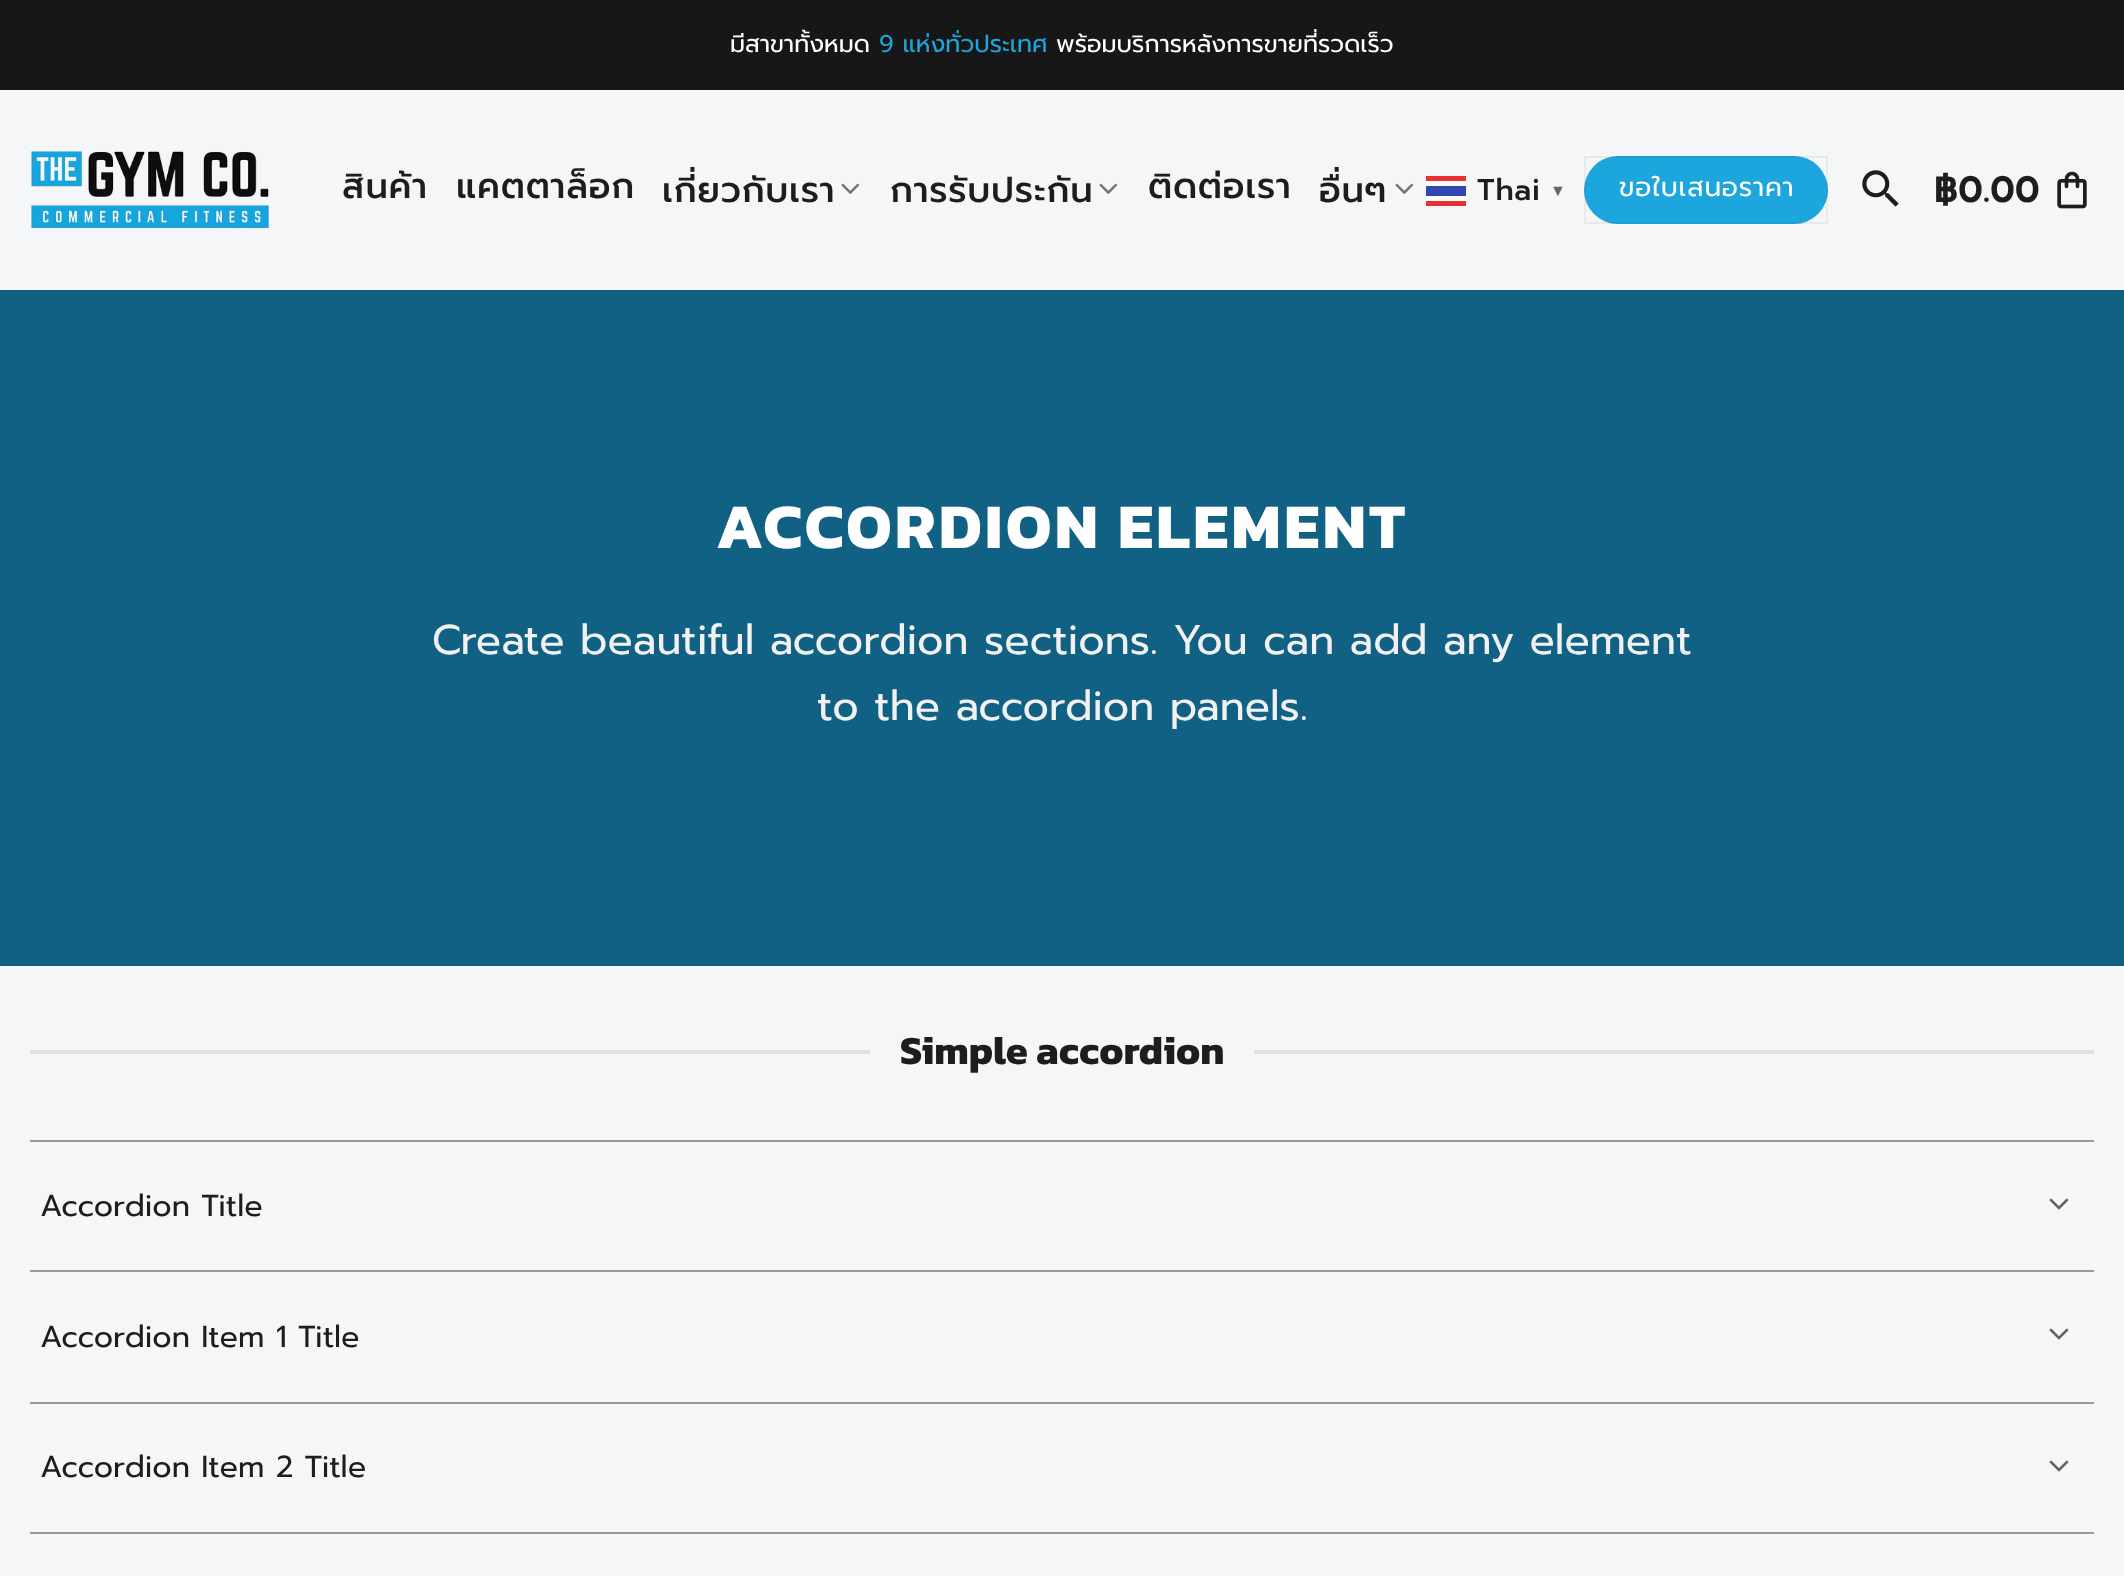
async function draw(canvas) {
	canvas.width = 2124;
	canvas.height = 1576;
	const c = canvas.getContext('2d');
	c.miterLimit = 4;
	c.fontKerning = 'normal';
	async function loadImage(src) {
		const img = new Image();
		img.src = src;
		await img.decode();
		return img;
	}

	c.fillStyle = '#f4f6f7';
	c.fillRect(0, 0, 2124, 1576);
	c.fillStyle = '#171717';
	c.fillRect(0, 0, 2124, 90);
	c.font = '24px Prompt';
	c.fillStyle = '#fff';
	c.fillText('มีสาขาทั้งหมด', 730, 52);
	c.fillStyle = '#1da6dd';
	c.fillText('9 แห่งทั่วประเทศ', 879, 52);
	c.fillStyle = '#fff';
	c.fillText('พร้อมบริการหลังการขายที่รวดเร็ว', 1056, 52);
	c.drawImage(await loadImage('img1.png'), 31, 151, 238, 78);
	c.letterSpacing = '0.75px';
	c.font = '500 35.25px Prompt';
	c.fillStyle = '#1d1d1d';
	for (const [text, x, y] of [
		['สินค้า', 342, 198],
		['แคตตาล็อก', 456, 198],
		['เกี่ยวกับเรา', 662, 202],
	]) {
		c.fillText(text, x, y);
	}
	c.drawImage(await loadImage('img2.png'), 841, 183, 19, 11);
	c.fillText('การรับประกัน', 890, 202);
	c.drawImage(await loadImage('img2.png'), 1099, 183, 19, 11);
	c.fillText('ติดต่อเรา', 1148, 198);
	c.fillText('อื่นๆ', 1319, 202);
	c.drawImage(await loadImage('img2.png'), 1395, 183, 19, 11);
	c.fillStyle = '#fdfdfd';
	c.fillRect(1426, 181, 40, 20);
	c.fillStyle = '#3147ad';
	c.fillRect(1426, 186, 40, 10);
	c.fillStyle = '#ea3131';
	c.beginPath();
	c.moveTo(1426, 176);
	c.lineTo(1466, 176);
	c.lineTo(1466, 181);
	c.lineTo(1426, 181);
	c.closePath();
	c.moveTo(1426, 201);
	c.lineTo(1466, 201);
	c.lineTo(1466, 206);
	c.lineTo(1426, 206);
	c.closePath();
	c.fill('evenodd');
	c.font = '500 30px Prompt';
	c.fillStyle = '#1d1d1d';
	c.fillText('Thai', 1477, 200);
	c.font = 'bold 16px Liberation Sans';
	c.fillStyle = '#666';
	c.fillText('▼', 1550, 196);
	c.fillStyle = '#1da6dd';
	c.beginPath();
	c.roundRect(1584, 156, 244, 68, 34);
	c.fill();
	c.strokeStyle = '#0000000d';
	c.lineWidth = 2;
	c.strokeRect(1585, 157, 242, 66);
	c.font = '26.5px Prompt';
	c.fillStyle = '#fff';
	c.fillText('ขอใบเสนอราคา', 1619, 196);
	c.drawImage(await loadImage('img3.png'), 1862, 170, 37, 37);
	c.font = 'bold 35.25px Prompt';
	c.fillStyle = '#1d1d1d';
	c.fillText('฿0.00', 1934, 202);
	c.drawImage(await loadImage('img4.png'), 2057, 171, 30, 38);
	c.fillStyle = '#116184';
	c.fillRect(0, 290, 2124, 676);
	c.letterSpacing = '3.25px';
	c.font = 'bold 64px Kanit';
	c.fillStyle = '#fff';
	c.fillText('ACCORDION ELEMENT', 716, 548);
	c.letterSpacing = '0px';
	c.font = '41.6px Prompt';
	c.fillStyle = '#f1f1f1';
	c.fillText('Create beautiful accordion sections. You can add any element', 432, 654);
	c.fillText('to the accordion panels.', 817, 720);
	c.fillStyle = '#dee0e1';
	c.fillRect(30, 1050, 840, 4);
	c.font = 'bold 40px Kanit';
	c.fillStyle = '#1d1d1d';
	c.fillText('Simple accordion', 900, 1064);
	c.fillStyle = '#dee0e1';
	c.fillRect(1254, 1050, 840, 4);
	c.fillStyle = '#999';
	c.fillRect(30, 1140, 2064, 2);
	c.font = '30.4px Prompt';
	c.fillStyle = '#1d1d1d';
	c.fillText('Accordion Title', 40, 1216);
	c.drawImage(await loadImage('img5.png'), 2049, 1198, 20, 12);
	c.fillStyle = '#999';
	c.fillRect(30, 1270, 2064, 2);
	c.fillStyle = '#1d1d1d';
	c.fillText('Accordion Item 1 Title', 40, 1347);
	c.drawImage(await loadImage('img5.png'), 2049, 1328, 20, 12);
	c.fillStyle = '#999';
	c.fillRect(30, 1402, 2064, 2);
	c.fillStyle = '#1d1d1d';
	c.fillText('Accordion Item 2 Title', 40, 1477);
	c.drawImage(await loadImage('img5.png'), 2049, 1460, 20, 12);
	c.fillStyle = '#999';
	c.fillRect(30, 1532, 2064, 2);
}

draw(document.querySelector('canvas'));
